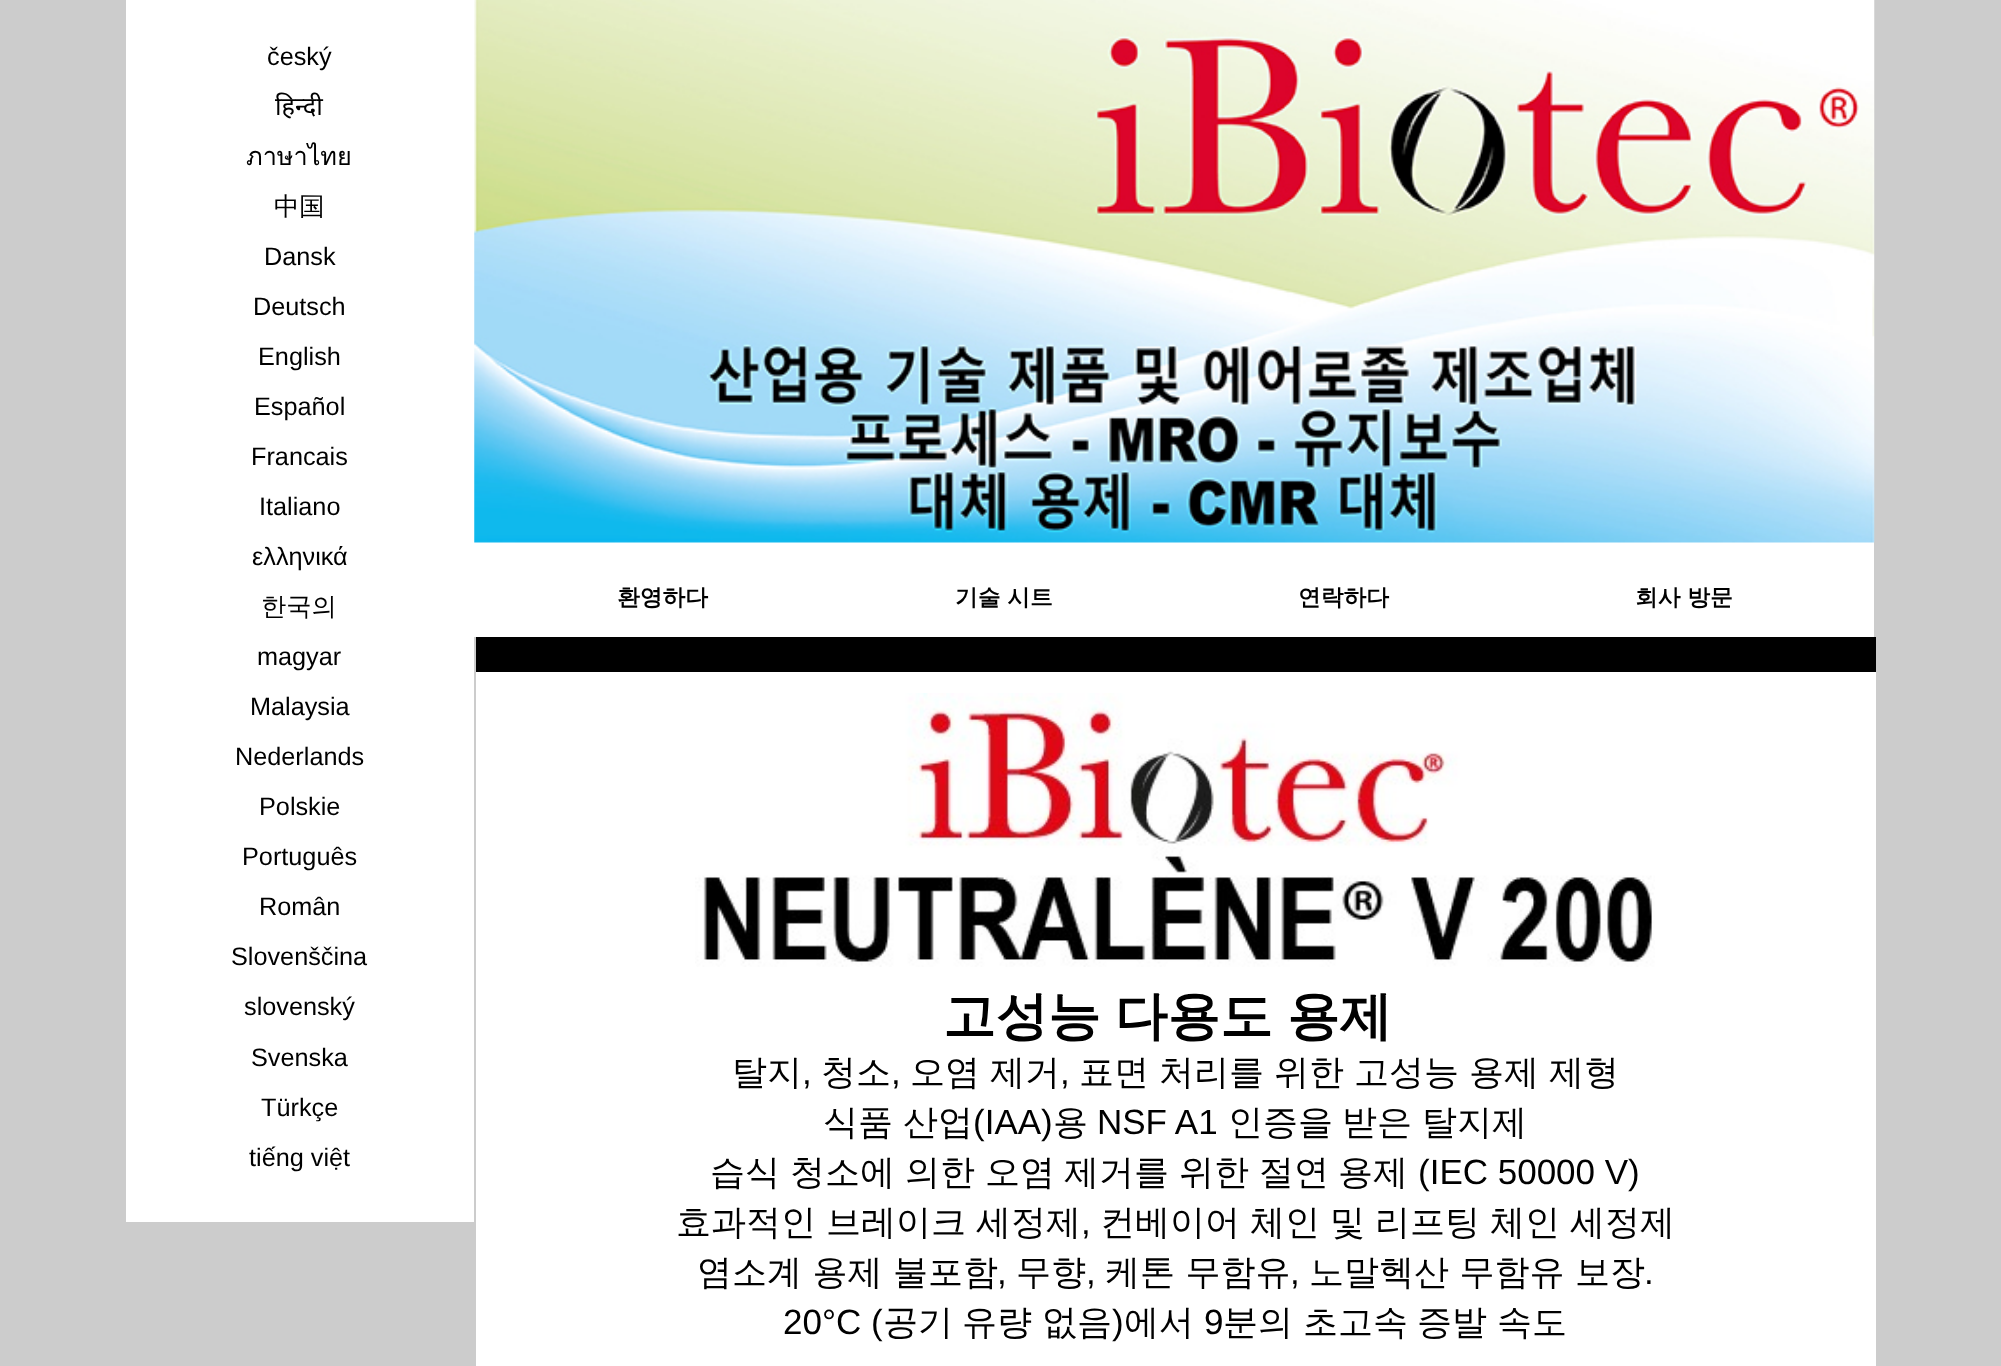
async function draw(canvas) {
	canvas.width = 2001;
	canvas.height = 1366;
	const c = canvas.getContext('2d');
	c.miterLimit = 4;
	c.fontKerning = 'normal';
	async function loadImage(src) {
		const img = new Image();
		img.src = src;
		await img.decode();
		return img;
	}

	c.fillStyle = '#ccc';
	c.fillRect(0, 0, 2001, 1366);
	c.fillStyle = '#fff';
	c.fillRect(126, 0, 348, 1222);
	c.font = '25.25px Liberation Sans';
	c.fillStyle = '#000';
	c.fillText('český', 267, 65);
	c.font = '25.25px Noto Sans';
	c.fillText('हिन्दी', 275, 115);
	c.font = '25.25px Loma';
	c.fillText('ภาษาไทย', 246, 165);
	c.font = '500 25.25px WenQuanYi Zen Hei';
	c.fillText('中国', 274, 215);
	c.font = '25.25px Liberation Sans';
	for (const [text, x, y] of [
		['Dansk', 264, 265],
		['Deutsch', 253, 315],
		['English', 258, 365],
		['Español', 254, 415],
		['Francais', 251, 465],
		['Italiano', 259, 515],
		['ελληνικά', 252, 565],
	]) {
		c.fillText(text, x, y);
	}
	c.font = '500 25.25px WenQuanYi Zen Hei';
	c.fillText('한국의', 261, 615);
	c.font = '25.25px Liberation Sans';
	for (const [text, x, y] of [
		['magyar', 257, 665],
		['Malaysia', 250, 715],
		['Nederlands', 235, 765],
		['Polskie', 259, 815],
		['Português', 242, 865],
		['Român', 259, 915],
		['Slovenščina', 231, 965],
		['slovenský', 244, 1015],
		['Svenska', 251, 1066],
		['Türkçe', 261, 1116],
		['tiếng việt', 249, 1166],
	]) {
		c.fillText(text, x, y);
	}
	c.fillStyle = '#fff';
	c.fillRect(474, 0, 1400, 637);
	c.drawImage(await loadImage('img1.png'), 474, 0, 1401, 543);
	c.font = 'bold 22.75px WenQuanYi Zen Hei';
	c.fillStyle = '#000';
	for (const [text, x, y] of [
		['환영하다', 617, 605],
		['기술 시트', 955, 605],
		['연락하다', 1298, 605],
		['회사 방문', 1635, 605],
	]) {
		c.fillText(text, x, y);
	}
	c.fillRect(476, 637, 1400, 35);
	c.fillStyle = '#fff';
	c.fillRect(476, 672, 1400, 694);
	c.drawImage(await loadImage('img2.png'), 695, 693, 960, 274);
	c.font = 'bold 52.5px WenQuanYi Zen Hei';
	c.fillStyle = '#000';
	for (const [text, x, y] of [
		['고성능', 943, 1034],
		['다용도', 1115, 1034],
		['용제', 1287, 1034],
	]) {
		c.fillText(text, x, y);
	}
	c.font = '500 35px WenQuanYi Zen Hei';
	c.fillText('탈지', 732, 1084);
	c.font = '35px Liberation Sans';
	c.fillText(',', 802, 1084);
	c.font = '500 35px WenQuanYi Zen Hei';
	c.fillText('청소', 821, 1084);
	c.font = '35px Liberation Sans';
	c.fillText(',', 891, 1084);
	c.wordSpacing = '-0.5px';
	c.font = '500 35px WenQuanYi Zen Hei';
	c.fillText('오염 제거', 910, 1084);
	c.wordSpacing = '0px';
	c.font = '35px Liberation Sans';
	c.fillText(',', 1060, 1084);
	c.wordSpacing = '-0.5px';
	c.font = '500 35px WenQuanYi Zen Hei';
	c.fillText('표면 처리를 위한 고성능 용제 제형', 1079, 1084);
	c.wordSpacing = '0px';
	c.fillText('식품', 823, 1134);
	c.fillText('산업', 903, 1134);
	c.font = '35px Liberation Sans';
	c.fillText('(IAA)', 973, 1134);
	c.font = '500 35px WenQuanYi Zen Hei';
	c.fillText('용', 1053, 1134);
	c.font = '35px Liberation Sans';
	c.fillText('NSF A1', 1097, 1134);
	c.font = '500 35px WenQuanYi Zen Hei';
	for (const [text, x, y] of [
		['인증을', 1228, 1134],
		['받은', 1342, 1134],
		['탈지제', 1422, 1134],
		['습식', 710, 1184],
		['청소에', 790, 1184],
		['의한', 905, 1184],
		['오염', 985, 1184],
		['제거를', 1064, 1184],
		['위한', 1179, 1184],
		['절연', 1259, 1184],
		['용제', 1338, 1184],
	]) {
		c.fillText(text, x, y);
	}
	c.font = '35px Liberation Sans';
	c.fillText('(IEC 50000 V)', 1418, 1184);
	c.wordSpacing = '-0.5px';
	c.font = '500 35px WenQuanYi Zen Hei';
	c.fillText('효과적인 브레이크 세정제', 676, 1234);
	c.wordSpacing = '0px';
	c.font = '35px Liberation Sans';
	c.fillText(',', 1081, 1234);
	c.wordSpacing = '-0.5px';
	c.font = '500 35px WenQuanYi Zen Hei';
	c.fillText('컨베이어 체인 및 리프팅 체인 세정제', 1100, 1234);
	c.wordSpacing = '0px';
	c.fillText('염소계 용제 불포함', 697, 1284);
	c.font = '35px Liberation Sans';
	c.fillText(',', 997, 1284);
	c.font = '500 35px WenQuanYi Zen Hei';
	c.fillText('무향', 1016, 1284);
	c.font = '35px Liberation Sans';
	c.fillText(',', 1086, 1284);
	c.font = '500 35px WenQuanYi Zen Hei';
	c.fillText('케톤 무함유', 1105, 1284);
	c.font = '35px Liberation Sans';
	c.fillText(',', 1290, 1284);
	c.font = '500 35px WenQuanYi Zen Hei';
	c.fillText('노말헥산 무함유 보장', 1309, 1284);
	c.font = '35px Liberation Sans';
	c.fillText('.', 1644, 1284);
	c.fillText('20°C (', 783, 1334);
	c.font = '500 35px WenQuanYi Zen Hei';
	for (const [text, x, y] of [
		['공기', 883, 1334],
		['유량', 962, 1334],
		['없음', 1042, 1334],
	]) {
		c.fillText(text, x, y);
	}
	c.font = '35px Liberation Sans';
	c.fillText(')', 1112, 1334);
	c.font = '500 35px WenQuanYi Zen Hei';
	c.fillText('에서', 1124, 1334);
	c.font = '35px Liberation Sans';
	c.fillText('9', 1204, 1334);
	c.font = '500 35px WenQuanYi Zen Hei';
	for (const [text, x, y] of [
		['분의', 1223, 1334],
		['초고속', 1303, 1334],
		['증발', 1417, 1334],
		['속도', 1497, 1334],
	]) {
		c.fillText(text, x, y);
	}
}

draw(document.querySelector('canvas'));
